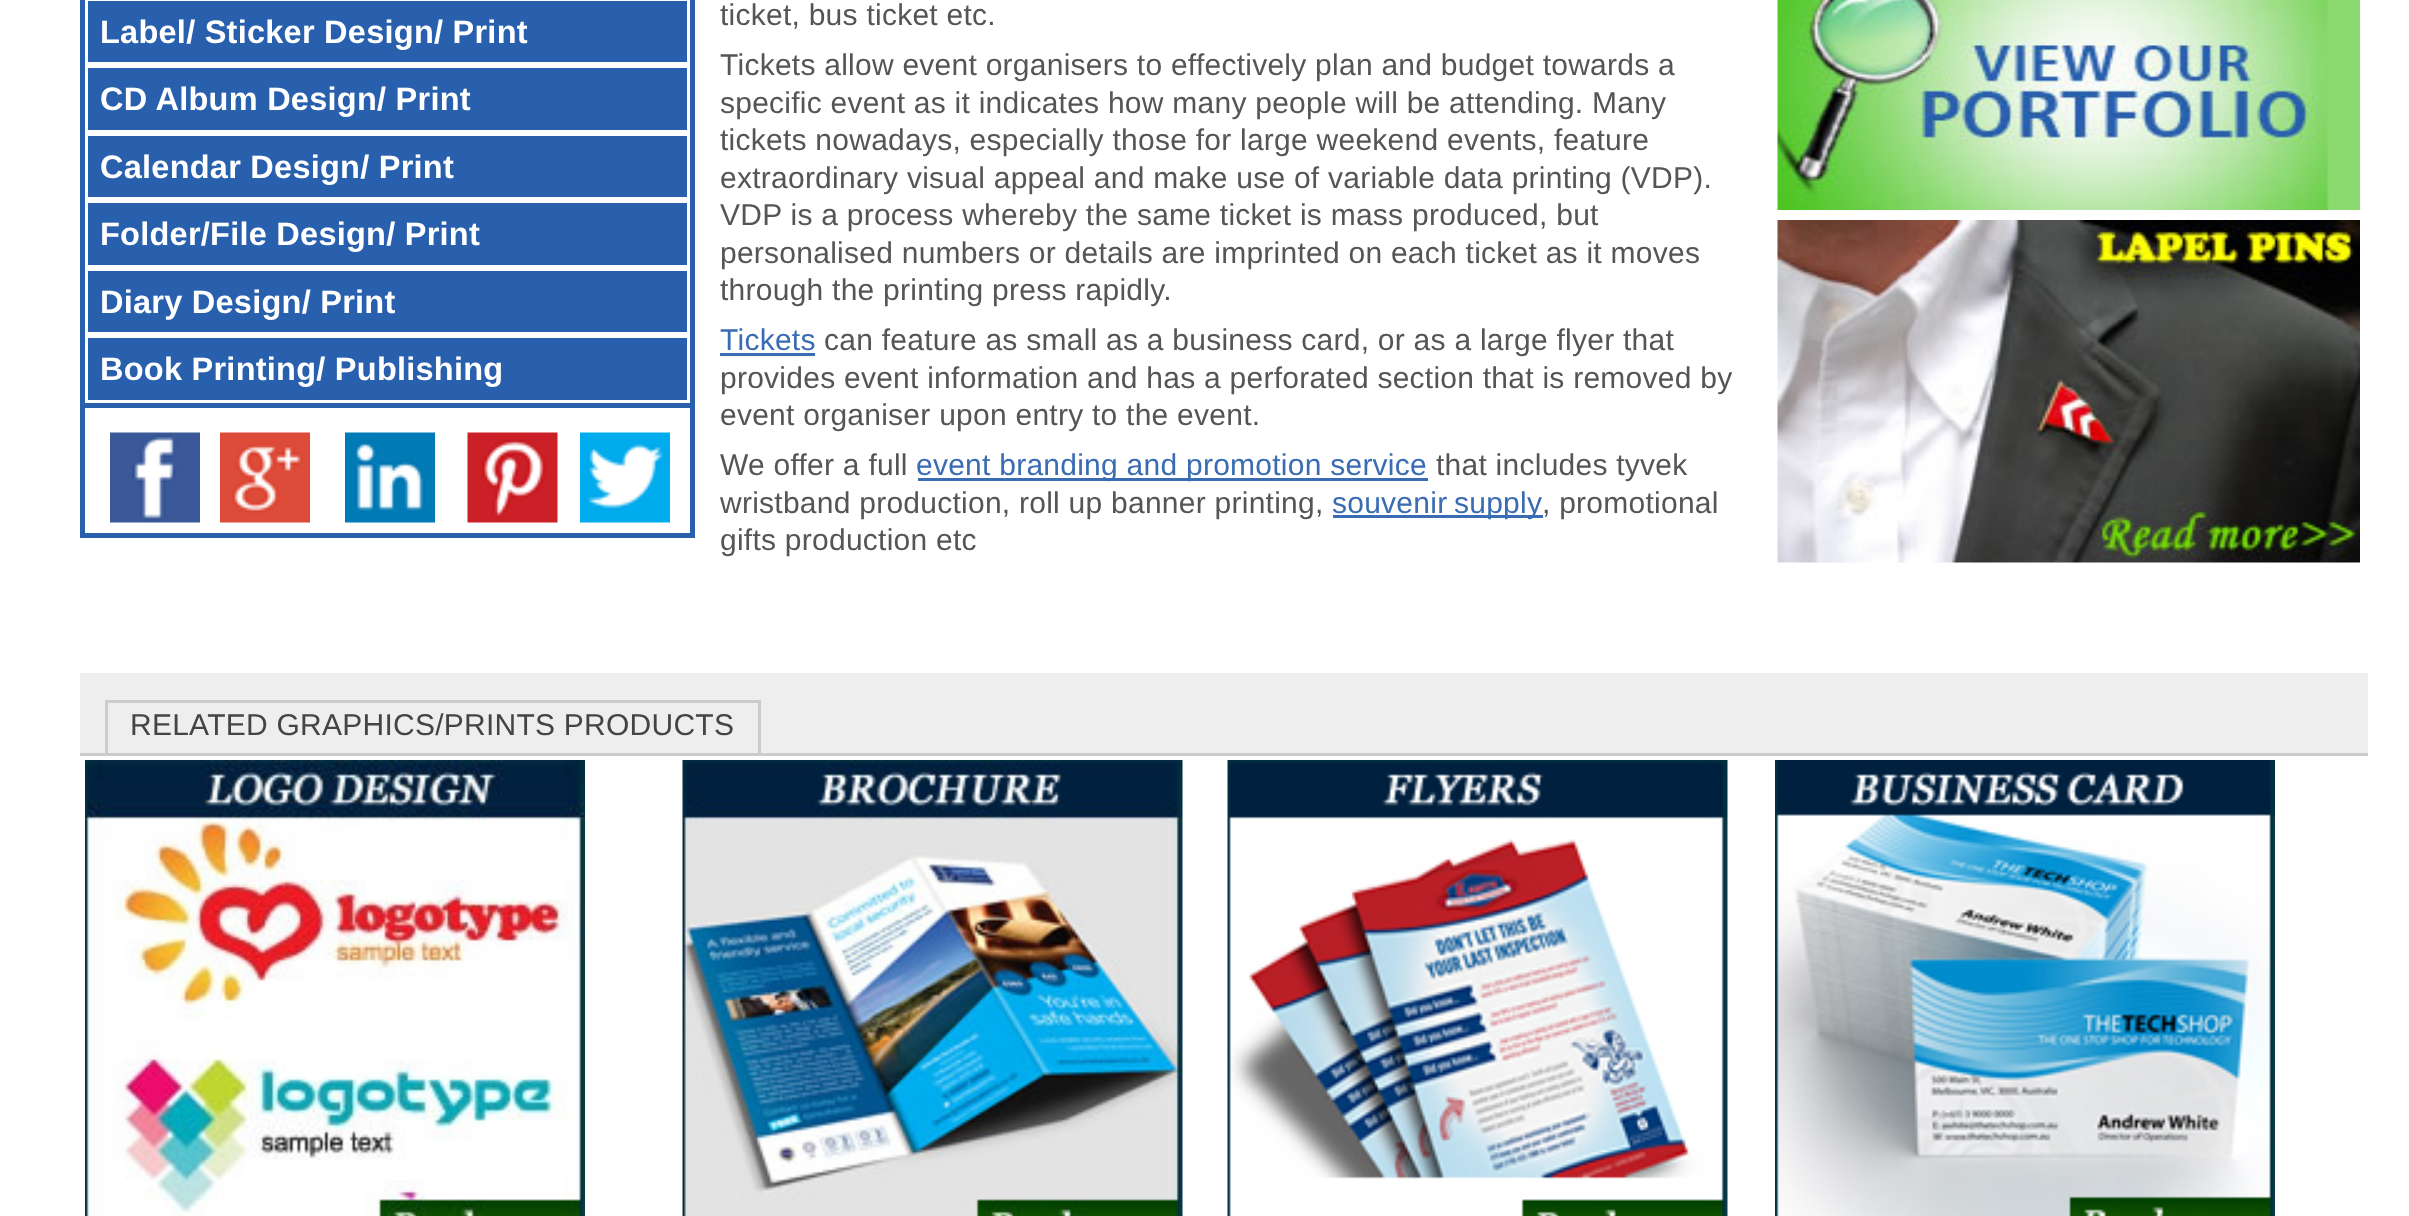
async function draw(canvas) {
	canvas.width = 2409;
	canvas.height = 1216;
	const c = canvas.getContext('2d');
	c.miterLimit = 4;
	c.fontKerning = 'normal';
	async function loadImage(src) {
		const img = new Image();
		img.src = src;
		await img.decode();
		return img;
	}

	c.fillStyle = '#fff';
	c.fillRect(0, 0, 2409, 1216);
	c.fillStyle = '#2960ad';
	c.fillRect(80, 0, 615, 538);
	c.strokeStyle = '#fff';
	c.lineWidth = 3;
	c.strokeRect(86.5, -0.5, 602, 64);
	c.letterSpacing = '0.25px';
	c.font = 'bold 32.5px Liberation Sans';
	c.fillStyle = '#fff';
	c.fillText('Label/ Sticker Design/ Print', 100, 43);
	c.strokeRect(86.5, 66.5, 602, 65);
	c.fillText('CD Album Design/ Print', 100, 110);
	c.strokeRect(86.5, 134.5, 602, 64);
	c.fillText('Calendar Design/ Print', 100, 178);
	c.strokeRect(86.5, 201.5, 602, 65);
	c.fillText('Folder/File Design/ Print', 100, 245);
	c.strokeRect(86.5, 269.5, 602, 64);
	c.fillText('Diary Design/ Print', 100, 313);
	c.strokeRect(86.5, 336.5, 602, 65);
	c.fillText('Book Printing/ Publishing', 100, 380);
	c.fillRect(85, 408, 605, 125);
	c.drawImage(await loadImage('img1.png'), 110, 432, 90, 91);
	c.drawImage(await loadImage('img2.png'), 220, 432, 90, 91);
	c.drawImage(await loadImage('img3.png'), 345, 432, 90, 91);
	c.drawImage(await loadImage('img4.png'), 467, 432, 91, 91);
	c.drawImage(await loadImage('img5.png'), 580, 432, 90, 91);
	c.font = '30px Liberation Sans';
	c.fillStyle = '#555';
	for (const [text, x, y] of [
		['ticket, bus ticket etc.', 720, 25],
		['Tickets allow event organisers to effectively plan and budget towards a', 720, 75],
		['specific event as it indicates how many people will be attending. Many', 720, 113],
		['tickets nowadays, especially those for large weekend events, feature', 720, 150],
		['extraordinary visual appeal and make use of variable data printing (VDP).', 720, 188],
		['VDP is a process whereby the same ticket is mass produced, but', 720, 225],
		['personalised numbers or details are imprinted on each ticket as it moves', 720, 263],
		['through the printing press rapidly.', 720, 300],
	]) {
		c.fillText(text, x, y);
	}
	c.fillStyle = '#396cb3';
	c.fillText('Tickets', 720, 350);
	c.fillRect(720, 353, 95, 3);
	c.fillStyle = '#555';
	for (const [text, x, y] of [
		['can feature as small as a business card, or as a large flyer that', 824, 350],
		['provides event information and has a perforated section that is removed by', 720, 388],
		['event organiser upon entry to the event.', 720, 425],
		['We offer a full', 720, 475],
	]) {
		c.fillText(text, x, y);
	}
	c.fillStyle = '#396cb3';
	c.fillRect(918, 478, 510, 3);
	c.fillText('event branding and promotion service', 916, 475);
	c.fillStyle = '#555';
	c.fillText('that includes tyvek', 1436, 475);
	c.fillText('wristband production, roll up banner printing,', 720, 513);
	c.fillStyle = '#396cb3';
	c.fillRect(1333, 515, 210, 3);
	c.wordSpacing = '-2px';
	c.fillText('souvenir supply', 1332, 513);
	c.wordSpacing = '0px';
	c.fillStyle = '#555';
	c.fillText(', promotional', 1542, 513);
	c.fillText('gifts production etc', 720, 550);
	c.drawImage(await loadImage('img6.png'), 1777, 0, 583, 210);
	c.drawImage(await loadImage('img7.png'), 1777, 220, 583, 343);
	for (const [x, y, w, h, color] of [
		[80, 673, 2288, 80, '#eee'],
		[80, 753, 2288, 3, '#ccc'],
		[105, 700, 655, 3, '#ccc'],
		[758, 700, 3, 53, '#ccc'],
		[105, 700, 3, 53, '#ccc'],
	]) {
		c.fillStyle = color;
		c.fillRect(x, y, w, h);
	}
	c.fillStyle = '#444';
	c.fillText('RELATED GRAPHICS/PRINTS PRODUCTS', 130, 735);
	c.drawImage(await loadImage('img8.png'), 85, 760, 500, 456);
	c.drawImage(await loadImage('img9.png'), 682, 760, 501, 456);
	c.drawImage(await loadImage('img10.png'), 1227, 760, 501, 456);
	c.drawImage(await loadImage('img11.png'), 1775, 760, 500, 456);
}

draw(document.querySelector('canvas'));
